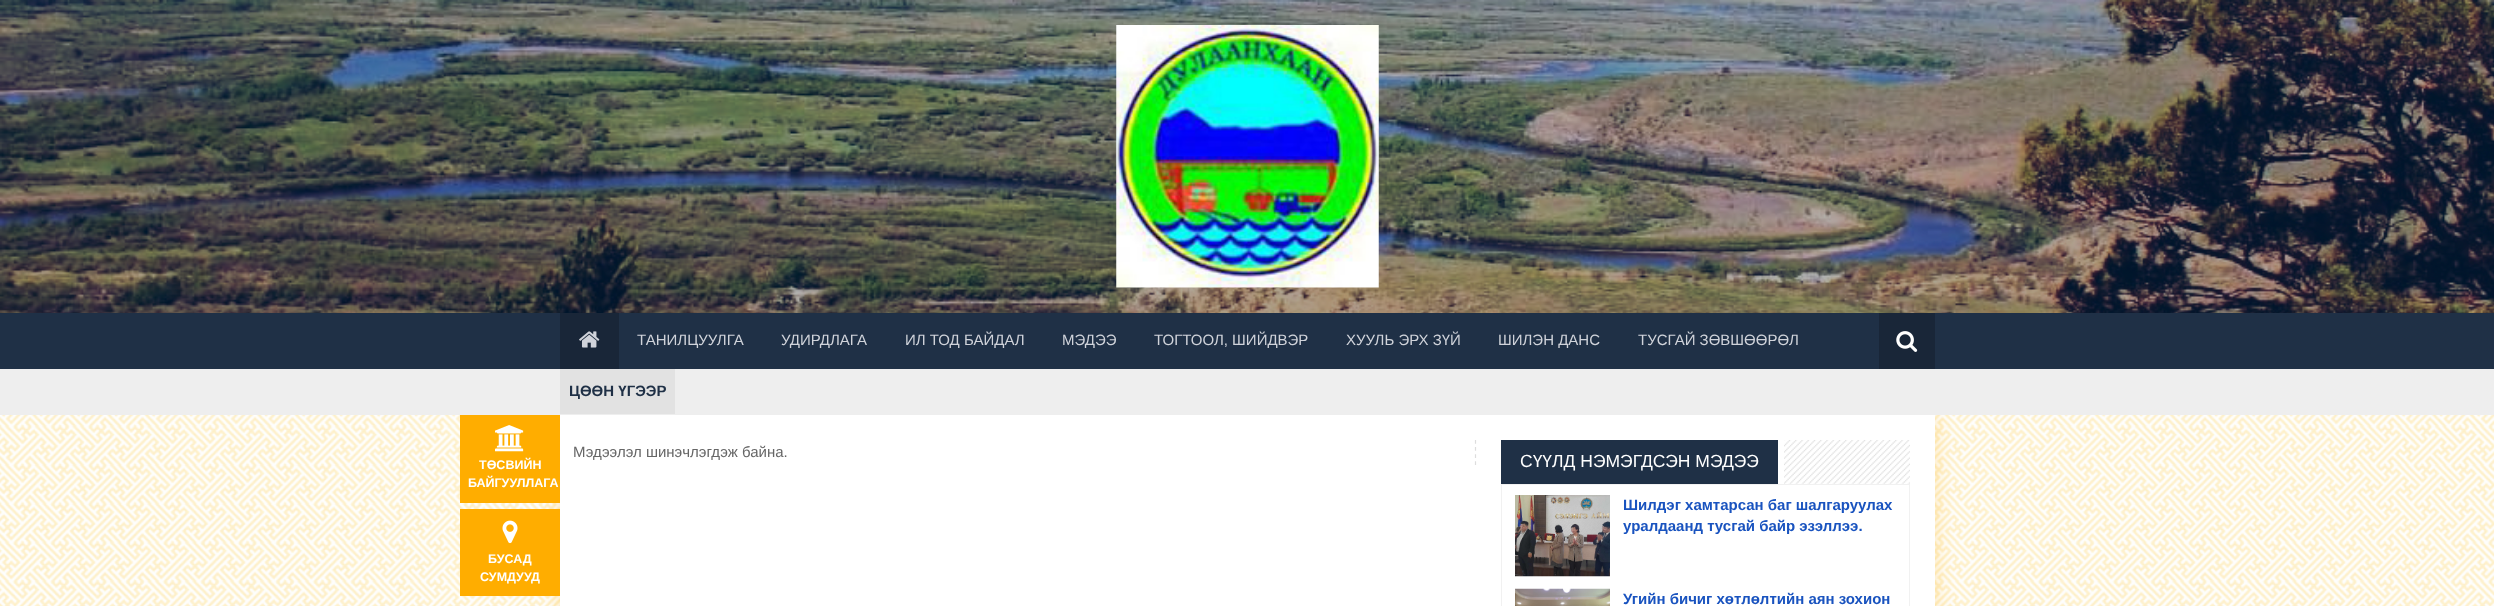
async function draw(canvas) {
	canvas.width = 2494;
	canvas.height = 606;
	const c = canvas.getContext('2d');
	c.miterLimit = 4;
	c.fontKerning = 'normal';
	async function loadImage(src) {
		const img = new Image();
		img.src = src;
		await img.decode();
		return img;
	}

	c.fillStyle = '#fff';
	c.fillRect(0, 0, 2494, 606);
	c.drawImage(await loadImage('img1.png'), 0, 415, 2494, 191);
	c.drawImage(await loadImage('img2.png'), 0, 0, 2494, 313);
	c.drawImage(await loadImage('img3.png'), 1116, 25, 263, 263);
	c.fillStyle = '#1f3046';
	c.fillRect(0, 313, 2494, 56);
	c.fillStyle = '#192638';
	c.fillRect(560, 313, 59, 56);
	c.drawImage(await loadImage('img4.png'), 579, 331, 21, 17);
	c.font = '15px Liberation Sans';
	c.fillStyle = '#d0d3da';
	for (const [text, x, y] of [
		['ТАНИЛЦУУЛГА', 637, 345],
		['УДИРДЛАГА', 781, 345],
		['ИЛ ТОД БАЙДАЛ', 905, 345],
		['МЭДЭЭ', 1062, 345],
		['ТОГТООЛ, ШИЙДВЭР', 1154, 345],
		['ХУУЛЬ ЭРХ ЗҮЙ', 1346, 345],
		['ШИЛЭН ДАНС', 1498, 345],
		['ТУСГАЙ ЗӨВШӨӨРӨЛ', 1638, 345],
	]) {
		c.fillText(text, x, y);
	}
	c.fillStyle = '#192638';
	c.fillRect(1879, 313, 56, 56);
	c.drawImage(await loadImage('img5.png'), 1896, 331, 22, 21);
	c.fillStyle = '#ffad004d';
	c.filter = 'blur(9.5px)';
	c.beginPath();
	c.rect(560, 415, 1375, 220);
	c.fill();
	c.filter = 'none';
	c.fillStyle = '#eee';
	c.fillRect(0, 369, 2494, 46);
	c.fillStyle = '#e2e2e2';
	c.fillRect(560, 369, 115, 45);
	c.font = 'bold 15px Liberation Sans';
	c.fillStyle = '#1f3046';
	c.fillText('ЦӨӨН ҮГЭЭР', 569, 396);
	c.fillStyle = '#fff';
	c.fillRect(560, 415, 1375, 191);
	c.beginPath();
	c.moveTo(1475.5, 440);
	c.lineTo(1475.5, 465);
	c.strokeStyle = '#ddd';
	c.lineWidth = 1.2;
	c.setLineDash([3.75, 3.34]);
	c.stroke();
	c.font = '15px Liberation Sans';
	c.fillStyle = '#666';
	c.fillText('Мэдээлэл шинэчлэгдэж байна.', 573, 457);
	c.fillStyle = '#ffad00';
	c.fillRect(460, 415, 100, 88);
	c.drawImage(await loadImage('img6.png'), 495, 425, 29, 27);
	c.font = 'bold 12.5px Liberation Sans';
	c.fillStyle = '#fff';
	c.fillText('ТӨСВИЙН', 479, 469);
	c.fillText('БАЙГУУЛЛАГА', 468, 487);
	c.drawImage(await loadImage('img7.png'), 1784, 440, 126, 44);
	c.fillStyle = '#1f3046';
	c.fillRect(1501, 440, 277, 44);
	c.font = '17.5px Liberation Sans';
	c.fillStyle = '#fff';
	c.fillText('СҮҮЛД НЭМЭГДСЭН МЭДЭЭ', 1520, 467);
	c.strokeStyle = '#f1f1f1';
	c.lineWidth = 1;
	c.setLineDash([]);
	c.strokeRect(1501.5, 484.5, 408, 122);
	c.drawImage(await loadImage('img8.png'), 1515, 495, 95, 82);
	c.font = 'bold 15px Liberation Sans';
	c.fillStyle = '#1953bf';
	c.fillText('Шилдэг хамтарсан баг шалгаруулах', 1623, 510);
	c.fillText('уралдаанд тусгай байр эзэллээ.', 1623, 531);
	c.drawImage(await loadImage('img9.png'), 1515, 588, 95, 18);
	c.fillText('Угийн бичиг хөтлөлтийн аян зохион', 1623, 604);
	c.fillStyle = '#ffad00';
	c.fillRect(460, 509, 100, 87);
	c.drawImage(await loadImage('img10.png'), 502, 520, 16, 24);
	c.font = 'bold 12.5px Liberation Sans';
	c.fillStyle = '#fff';
	c.fillText('БУСАД', 488, 563);
	c.fillText('СУМДУУД', 480, 581);
}

draw(document.querySelector('canvas'));
